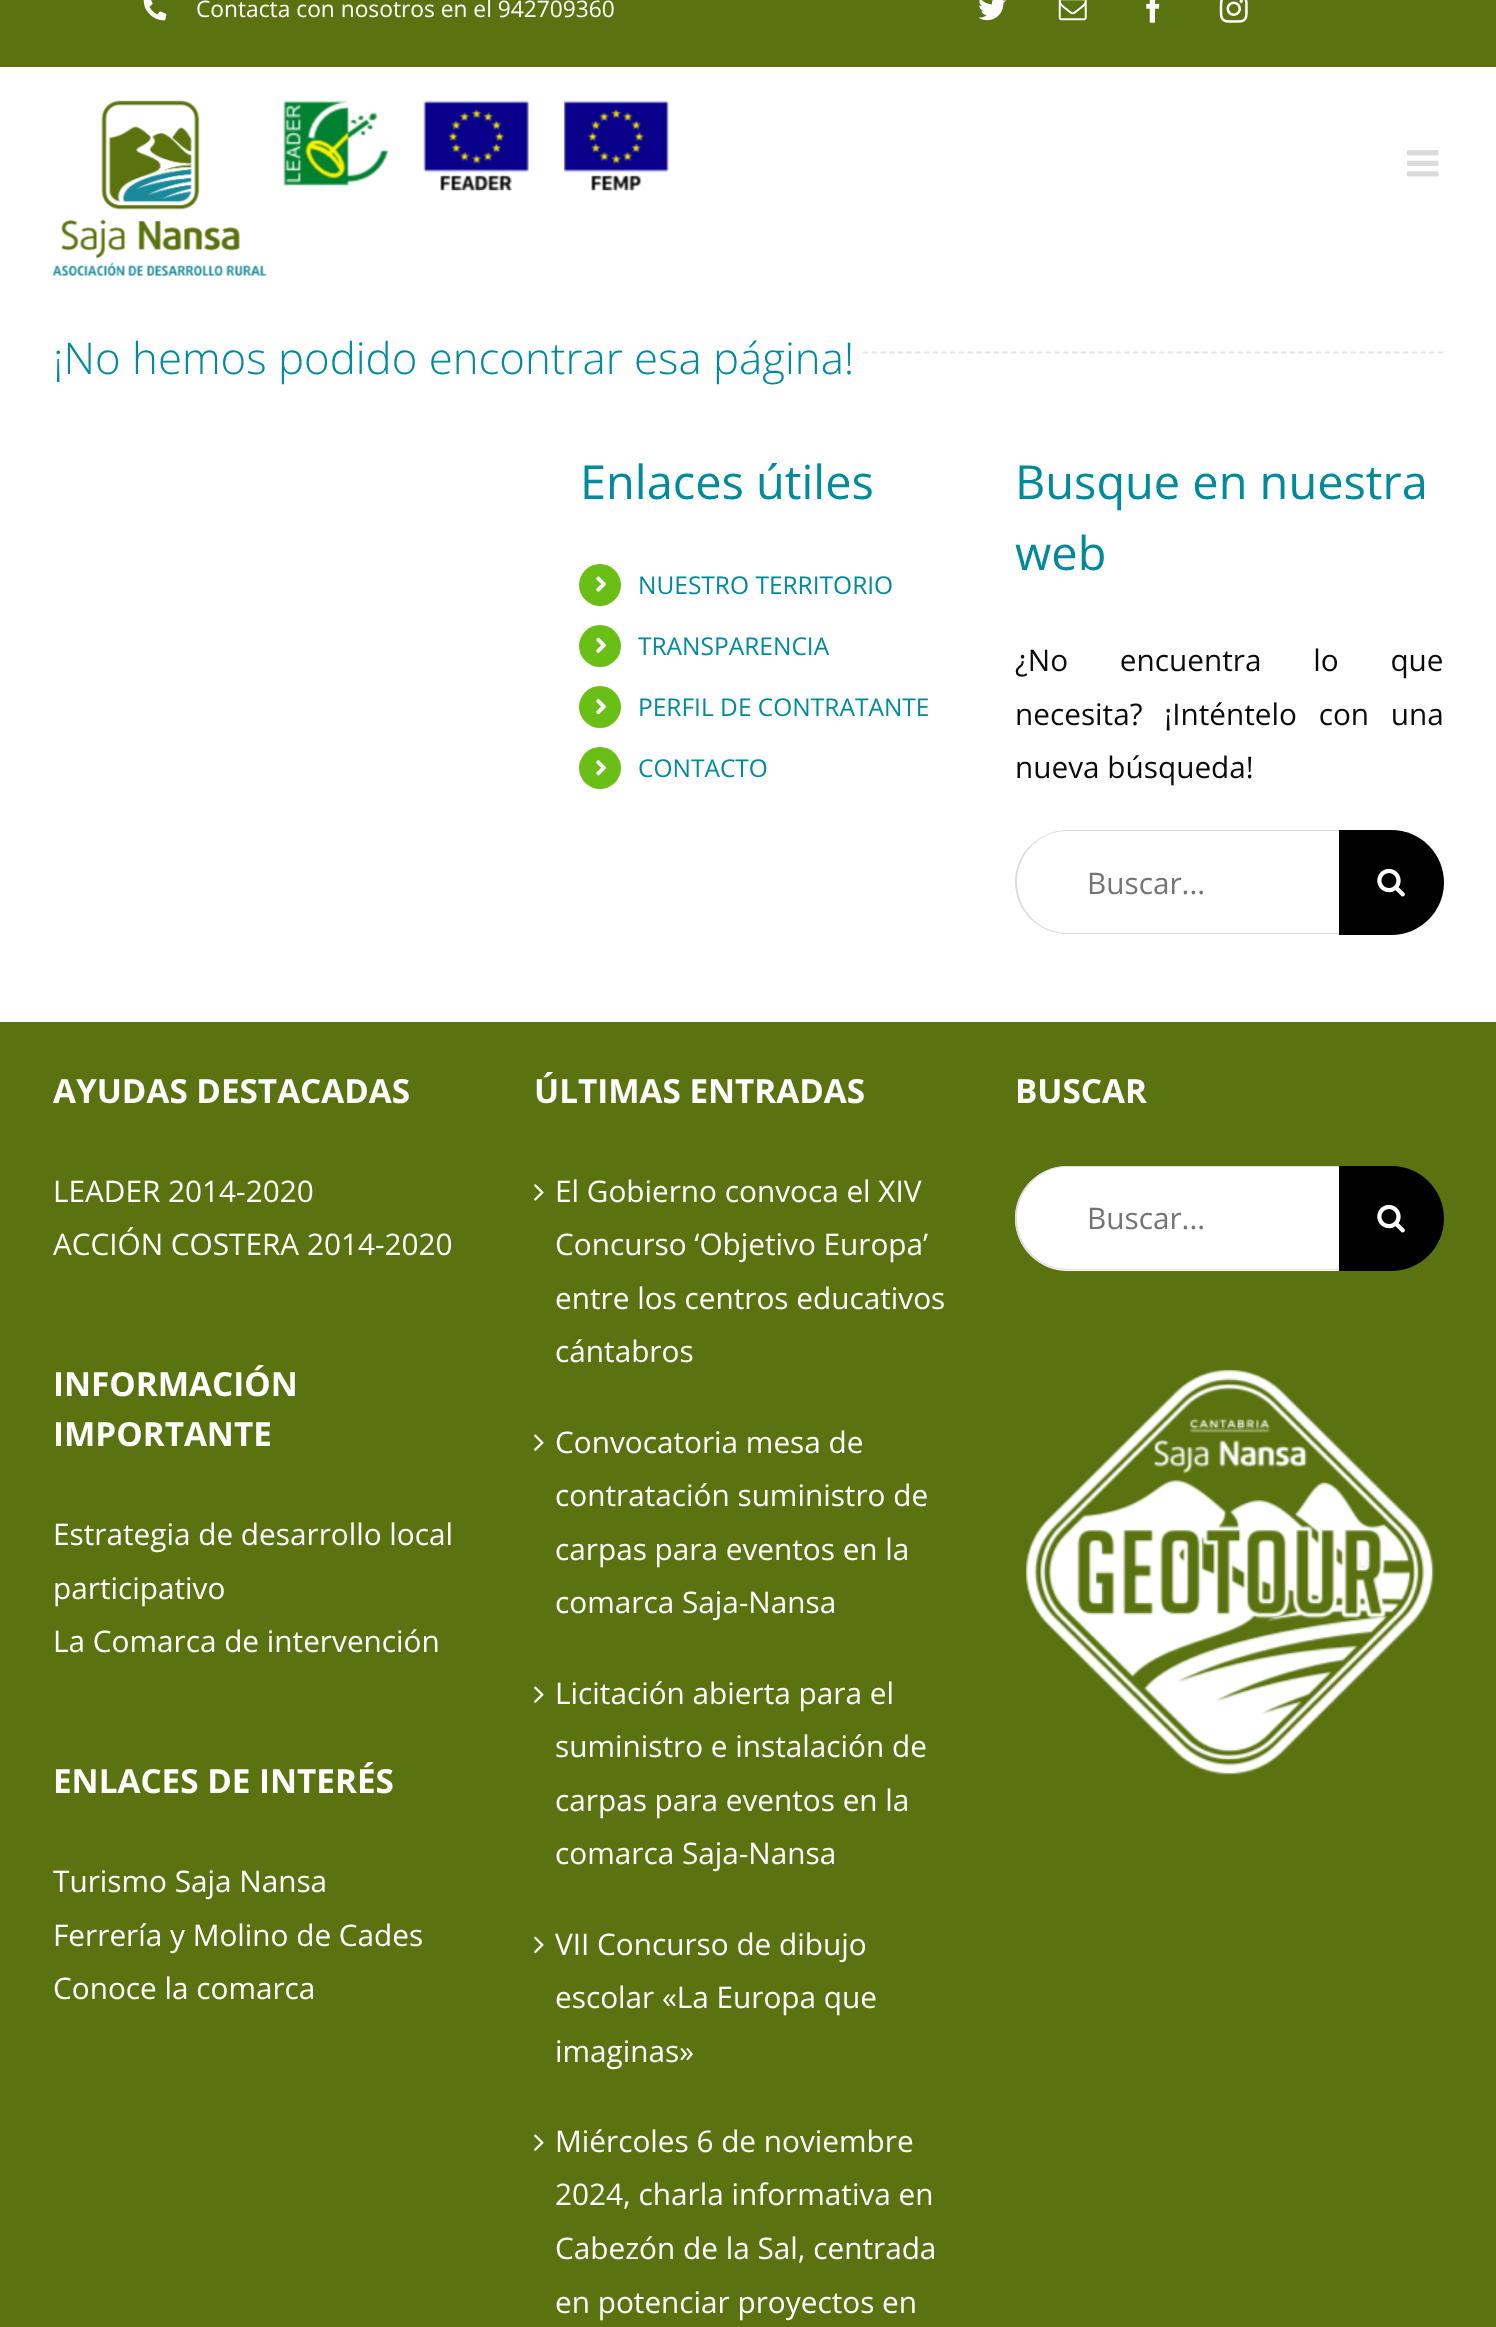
async function draw(canvas) {
	canvas.width = 1496;
	canvas.height = 2327;
	const c = canvas.getContext('2d');
	c.miterLimit = 4;
	c.fontKerning = 'normal';
	async function loadImage(src) {
		const img = new Image();
		img.src = src;
		await img.decode();
		return img;
	}

	c.fillStyle = '#fff';
	c.fillRect(0, 0, 1496, 2327);
	c.fillStyle = '#5a7310';
	c.fillRect(0, 0, 1496, 67);
	c.drawImage(await loadImage('img1.png'), 143, 0, 24, 21);
	c.font = '22.75px Open Sans';
	c.fillStyle = '#fff';
	c.fillText('Contacta con nosotros en el 942709360', 196, 17);
	c.drawImage(await loadImage('img2.png'), 978, 0, 29, 21);
	c.drawImage(await loadImage('img3.png'), 1058, 0, 29, 21);
	c.drawImage(await loadImage('img4.png'), 1146, 0, 14, 23);
	c.drawImage(await loadImage('img5.png'), 1219, 0, 29, 23);
	c.drawImage(await loadImage('img6.png'), 53, 100, 214, 176);
	c.drawImage(await loadImage('img7.png'), 283, 100, 106, 86);
	c.drawImage(await loadImage('img8.png'), 423, 100, 106, 91);
	c.drawImage(await loadImage('img9.png'), 564, 100, 105, 91);
	c.drawImage(await loadImage('img10.png'), 1407, 150, 32, 27);
	c.font = '300 43.75px Open Sans';
	c.fillStyle = '#008a9b';
	c.fillText('¡No hemos podido encontrar esa página!', 53, 374);
	c.beginPath();
	c.moveTo(863, 352.5);
	c.lineTo(1444, 352.5);
	c.strokeStyle = '#e5e5e5';
	c.lineWidth = 1.8;
	c.setLineDash([5.25, 3.46]);
	c.stroke();
	c.font = '46.9px Open Sans';
	c.fillText('Enlaces útiles', 580, 499);
	c.fillStyle = '#6abf16';
	c.beginPath();
	c.arc(600, 585, 21, 0, 2 * Math.PI);
	c.fill();
	c.drawImage(await loadImage('img11.png'), 596, 576, 10, 16);
	c.font = '24.5px Open Sans';
	c.fillStyle = '#008a9b';
	c.fillText('NUESTRO TERRITORIO', 638, 594);
	c.fillStyle = '#6abf16';
	c.beginPath();
	c.arc(600, 646, 21, 0, 2 * Math.PI);
	c.fill();
	c.drawImage(await loadImage('img12.png'), 596, 637, 10, 16);
	c.fillStyle = '#008a9b';
	c.fillText('TRANSPARENCIA', 638, 655);
	c.fillStyle = '#6abf16';
	c.beginPath();
	c.arc(600, 707, 21, 0, 2 * Math.PI);
	c.fill();
	c.drawImage(await loadImage('img13.png'), 596, 698, 10, 17);
	c.fillStyle = '#008a9b';
	c.fillText('PERFIL DE CONTRATANTE', 638, 716);
	c.fillStyle = '#6abf16';
	c.beginPath();
	c.arc(600, 768, 21, 0, 2 * Math.PI);
	c.fill();
	c.drawImage(await loadImage('img14.png'), 596, 760, 10, 16);
	c.fillStyle = '#008a9b';
	c.fillText('CONTACTO', 638, 777);
	c.font = '46.9px Open Sans';
	c.fillText('Busque en nuestra', 1015, 499);
	c.fillText('web', 1015, 570);
	c.wordSpacing = '44px';
	c.font = '29.75px Open Sans';
	c.fillStyle = '#0a0a0a';
	c.fillText('¿No encuentra lo que', 1015, 671);
	c.wordSpacing = '14px';
	c.fillText('necesita? ¡Inténtelo con una', 1015, 725);
	c.wordSpacing = '0px';
	c.fillText('nueva búsqueda!', 1015, 778);
	c.fillStyle = '#dddbdb';
	c.beginPath();
	c.moveTo(1068, 830);
	c.bezierCurveTo(1054, 830, 1041, 836, 1031, 845);
	c.bezierCurveTo(1021, 854, 1015, 868, 1015, 882);
	c.bezierCurveTo(1015, 911, 1039, 934, 1068, 934);
	c.lineTo(1339, 934);
	c.lineTo(1339, 933);
	c.lineTo(1068, 933);
	c.bezierCurveTo(1039, 933, 1017, 910, 1017, 882);
	c.bezierCurveTo(1017, 854, 1039, 831, 1068, 831);
	c.lineTo(1339, 831);
	c.lineTo(1339, 830);
	c.closePath();
	c.fill();
	c.fillStyle = '#747474';
	c.fillText('Buscar...', 1087, 894);
	c.fillStyle = '#000';
	c.beginPath();
	c.roundRect(1339, 830, 105, 105, [0, 52.5, 52.5, 0]);
	c.fill();
	c.drawImage(await loadImage('img15.png'), 1377, 868, 28, 29);
	c.fillStyle = '#5a7310';
	c.fillRect(0, 1022, 1496, 1305);
	c.font = 'bold 33.25px Open Sans';
	c.fillStyle = '#fff';
	c.fillText('AYUDAS DESTACADAS', 53, 1103);
	c.font = '29.75px Open Sans';
	c.fillText('LEADER 2014-2020', 53, 1202);
	c.fillText('ACCIÓN COSTERA 2014-2020', 53, 1255);
	c.font = 'bold 33.25px Open Sans';
	c.fillText('INFORMACIÓN', 53, 1396);
	c.fillText('IMPORTANTE', 53, 1446);
	c.font = '29.75px Open Sans';
	for (const [text, x, y] of [
		['Estrategia de desarrollo local', 53, 1545],
		['participativo', 53, 1599],
		['La Comarca de intervención', 53, 1652],
	]) {
		c.fillText(text, x, y);
	}
	c.font = 'bold 33.25px Open Sans';
	c.fillText('ENLACES DE INTERÉS', 53, 1793);
	c.font = '29.75px Open Sans';
	for (const [text, x, y] of [
		['Turismo Saja Nansa', 53, 1892],
		['Ferrería y Molino de Cades', 53, 1946],
		['Conoce la comarca', 53, 1999],
	]) {
		c.fillText(text, x, y);
	}
	c.font = 'bold 33.25px Open Sans';
	c.fillText('ÚLTIMAS ENTRADAS', 534, 1103);
	c.drawImage(await loadImage('img16.png'), 534, 1184, 10, 17);
	c.font = '29.75px Open Sans';
	for (const [text, x, y] of [
		['El Gobierno convoca el XIV', 555, 1202],
		['Concurso ‘Objetivo Europa’', 555, 1255],
		['entre los centros educativos', 555, 1309],
		['cántabros', 555, 1362],
	]) {
		c.fillText(text, x, y);
	}
	c.drawImage(await loadImage('img17.png'), 534, 1434, 10, 17);
	for (const [text, x, y] of [
		['Convocatoria mesa de', 555, 1453],
		['contratación suministro de', 555, 1506],
		['carpas para eventos en la', 555, 1560],
		['comarca Saja-Nansa', 555, 1613],
	]) {
		c.fillText(text, x, y);
	}
	c.drawImage(await loadImage('img17.png'), 534, 1686, 10, 17);
	for (const [text, x, y] of [
		['Licitación abierta para el', 555, 1704],
		['suministro e instalación de', 555, 1757],
		['carpas para eventos en la', 555, 1811],
		['comarca Saja-Nansa', 555, 1864],
	]) {
		c.fillText(text, x, y);
	}
	c.drawImage(await loadImage('img18.png'), 534, 1936, 10, 18);
	for (const [text, x, y] of [
		['VII Concurso de dibujo', 555, 1955],
		['escolar «La Europa que', 555, 2008],
		['imaginas»', 555, 2062],
	]) {
		c.fillText(text, x, y);
	}
	c.drawImage(await loadImage('img17.png'), 534, 2134, 10, 17);
	for (const [text, x, y] of [
		['Miércoles 6 de noviembre', 555, 2152],
		['2024, charla informativa en', 555, 2205],
		['Cabezón de la Sal, centrada', 555, 2259],
		['en potenciar proyectos en', 555, 2313],
	]) {
		c.fillText(text, x, y);
	}
	c.font = 'bold 33.25px Open Sans';
	c.fillText('BUSCAR', 1015, 1103);
	c.beginPath();
	c.roundRect(1015, 1166, 324, 105, [52.5, 0, 0, 52.5]);
	c.fill();
	c.fillStyle = '#dddbdb';
	c.beginPath();
	c.moveTo(1068, 1166);
	c.bezierCurveTo(1054, 1166, 1041, 1172, 1031, 1181);
	c.bezierCurveTo(1021, 1190, 1015, 1204, 1015, 1218);
	c.bezierCurveTo(1015, 1247, 1039, 1270, 1068, 1270);
	c.lineTo(1339, 1270);
	c.lineTo(1339, 1269);
	c.lineTo(1068, 1269);
	c.bezierCurveTo(1039, 1269, 1017, 1246, 1017, 1218);
	c.bezierCurveTo(1017, 1190, 1039, 1167, 1068, 1167);
	c.lineTo(1339, 1167);
	c.lineTo(1339, 1166);
	c.closePath();
	c.fill();
	c.font = '29.75px Open Sans';
	c.fillStyle = '#747474';
	c.fillText('Buscar...', 1087, 1229);
	c.fillStyle = '#000';
	c.beginPath();
	c.roundRect(1339, 1166, 105, 105, [0, 52.5, 52.5, 0]);
	c.fill();
	c.drawImage(await loadImage('img15.png'), 1377, 1204, 28, 29);
	c.drawImage(await loadImage('img19.png'), 1025, 1369, 409, 406);
}

draw(document.querySelector('canvas'));
